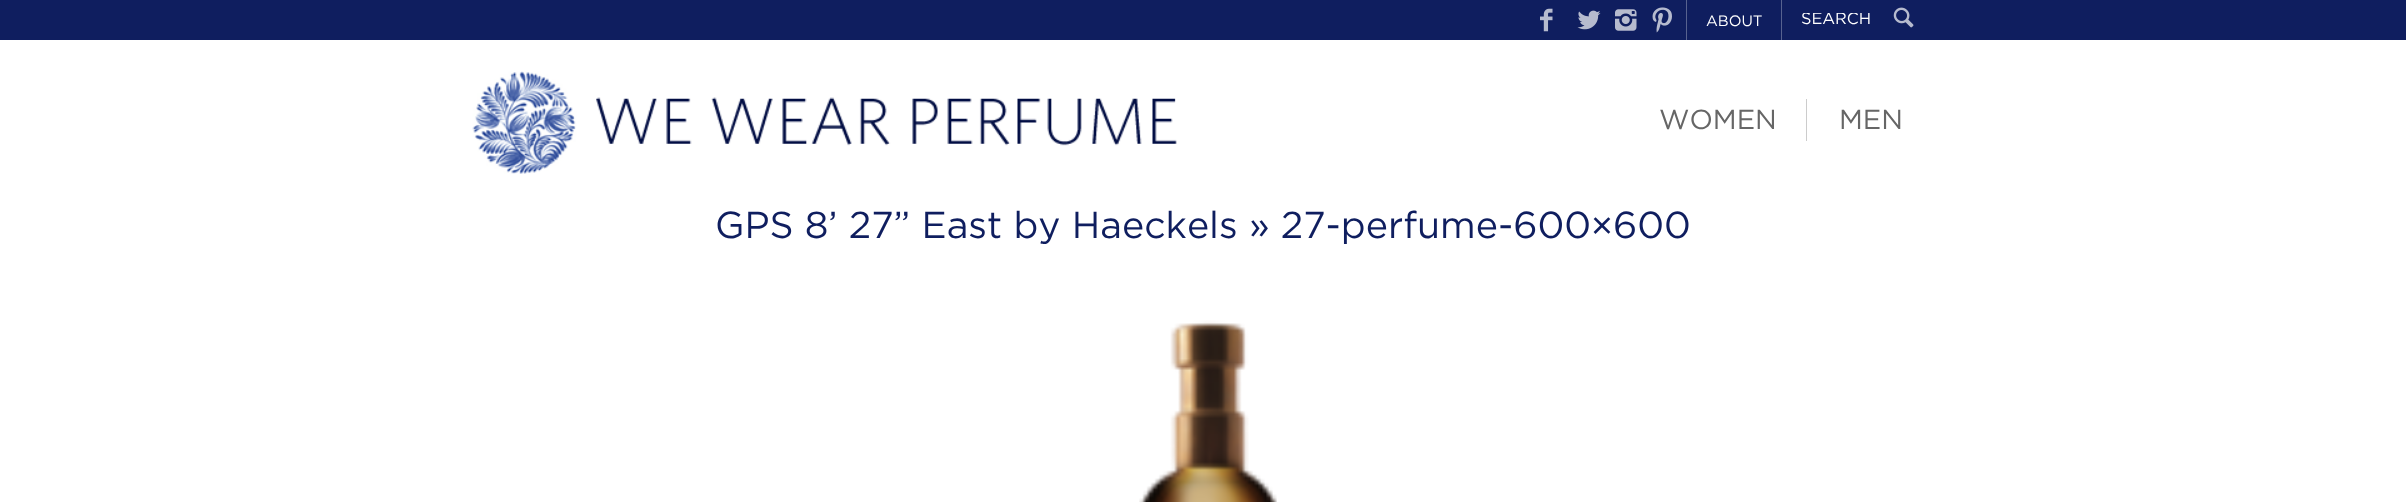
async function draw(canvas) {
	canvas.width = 2406;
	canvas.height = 502;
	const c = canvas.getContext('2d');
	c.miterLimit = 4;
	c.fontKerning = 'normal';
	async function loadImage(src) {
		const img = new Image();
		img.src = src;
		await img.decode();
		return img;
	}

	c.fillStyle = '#fff';
	c.fillRect(0, 0, 2406, 502);
	c.fillStyle = '#0f1e5f';
	c.fillRect(0, 0, 2406, 40);
	c.drawImage(await loadImage('img1.png'), 1540, 8, 13, 24);
	c.drawImage(await loadImage('img2.png'), 1577, 10, 24, 20);
	c.drawImage(await loadImage('img3.png'), 1615, 9, 22, 22);
	c.fillStyle = '#57628f';
	c.fillRect(1686, 0, 1, 40);
	c.drawImage(await loadImage('img4.png'), 1652, 7, 20, 26);
	c.fillRect(1781, 0, 1, 40);
	c.font = '15px Gotham';
	c.fillStyle = '#fff';
	c.fillText('ABOUT', 1706, 26);
	c.save();
	c.beginPath();
	c.rect(1801, 13, 85, 16);
	c.clip();
	c.font = '16.25px Gotham';
	c.fillText('SEARCH', 1801, 24);
	c.restore();
	c.drawImage(await loadImage('img5.png'), 1893, 7, 21, 21);
	c.drawImage(await loadImage('img6.png'), 472, 71, 705, 103);
	c.font = '27.5px Gotham';
	c.fillStyle = '#666';
	c.fillText('WOMEN', 1659, 129);
	c.fillStyle = '#ccc';
	c.fillRect(1806, 99, 1, 42);
	c.fillStyle = '#666';
	c.fillText('MEN', 1839, 129);
	c.font = '37.5px Gotham';
	c.fillStyle = '#0f1e5f';
	c.fillText('GPS 8’ 27” East by Haeckels » 27-perfume-600', 715, 238);
	c.font = '37.5px Liberation Sans';
	c.fillText('×', 1591, 238);
	c.font = '37.5px Gotham';
	c.fillText('600', 1613, 238);
	c.drawImage(await loadImage('img7.png'), 1139, 320, 138, 182);
}

draw(document.querySelector('canvas'));
